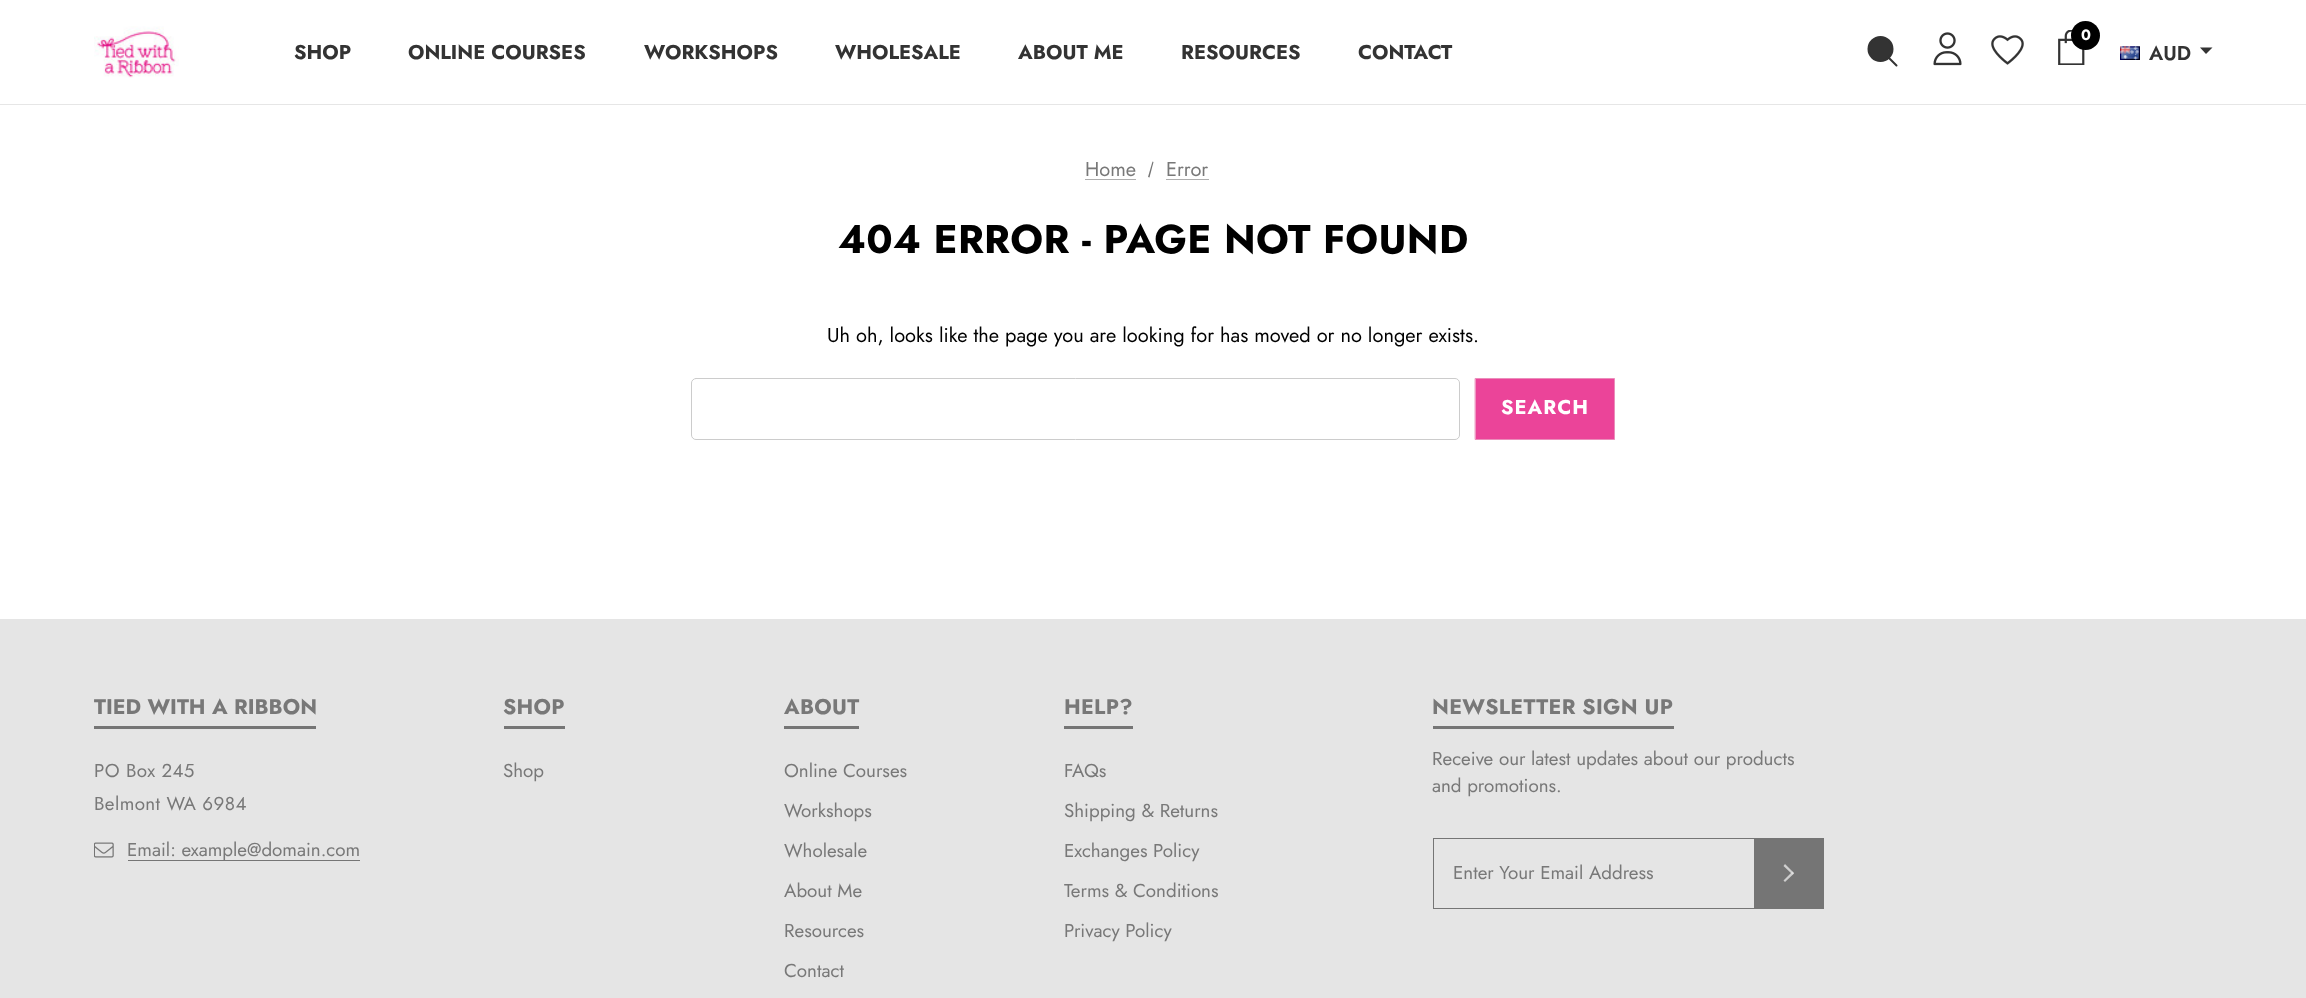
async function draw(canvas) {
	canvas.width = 2306;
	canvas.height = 998;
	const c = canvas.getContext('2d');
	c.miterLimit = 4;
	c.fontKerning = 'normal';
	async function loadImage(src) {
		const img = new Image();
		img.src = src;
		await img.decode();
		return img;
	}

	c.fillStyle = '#fff';
	c.fillRect(0, 0, 2306, 998);
	c.fillStyle = '#e6e6e6';
	c.fillRect(0, 104, 2306, 1);
	c.drawImage(await loadImage('img1.png'), 94, 26, 85, 52);
	c.font = 'bold 20px Jost';
	c.fillStyle = '#333';
	for (const [text, x, y] of [
		['SHOP', 294, 59],
		['ONLINE COURSES', 408, 59],
		['WORKSHOPS', 644, 59],
		['WHOLESALE', 835, 59],
		['ABOUT ME', 1018, 59],
		['RESOURCES', 1181, 59],
		['CONTACT', 1358, 59],
	]) {
		c.fillText(text, x, y);
	}
	c.beginPath();
	c.arc(1880.5, 49, 12, 0, 2 * Math.PI);
	c.fill();
	c.strokeStyle = '#333';
	c.lineWidth = 2;
	c.stroke();
	c.beginPath();
	c.moveTo(1889.5, 58.5);
	c.lineTo(1896.5, 65.5);
	c.lineCap = 'round';
	c.lineJoin = 'round';
	c.stroke();
	c.drawImage(await loadImage('img2.png'), 1933, 32, 29, 34);
	c.drawImage(await loadImage('img3.png'), 1991, 35, 33, 30);
	c.drawImage(await loadImage('img4.png'), 2058, 30, 27, 35);
	c.fillStyle = '#000';
	c.beginPath();
	c.arc(2085.5, 35.5, 14.5, 0, 2 * Math.PI);
	c.fill();
	c.font = 'bold 15px Jost';
	c.fillStyle = '#fff';
	c.fillText('0', 2081, 40);
	c.drawImage(await loadImage('img5.png'), 2120, 46, 20, 14);
	c.font = '600 20px Jost';
	c.fillStyle = '#333';
	c.fillText('AUD', 2149, 60);
	c.beginPath();
	c.moveTo(2200, 47.5);
	c.lineTo(2212.5, 47.5);
	c.lineTo(2206, 54);
	c.closePath();
	c.fill();
	c.fillStyle = '#aeaeae';
	c.fillRect(1085, 179, 51, 1);
	c.font = '20px Jost';
	c.fillStyle = '#787878';
	c.fillText('Home', 1085, 176);
	c.fillStyle = '#757575';
	c.beginPath();
	c.moveTo(1152.5, 161.5);
	c.lineTo(1153.5, 162);
	c.lineTo(1149.5, 177.5);
	c.lineTo(1148, 177);
	c.closePath();
	c.fill();
	c.fillStyle = '#aeaeae';
	c.fillRect(1166, 179, 43, 1);
	c.fillStyle = '#787878';
	c.fillText('Error', 1166, 176);
	c.letterSpacing = '0.3px';
	c.font = 'bold 40px Jost';
	c.fillStyle = '#000';
	c.fillText('404 ERROR - PAGE NOT FOUND', 838, 253);
	c.letterSpacing = '0px';
	c.font = '20px Jost';
	c.fillText('Uh oh, looks like the page you are looking for has moved or no longer exists.', 827, 342);
	c.beginPath();
	c.roundRect(691.5, 378.5, 768, 61, 4.5);
	c.strokeStyle = '#ccc';
	c.lineWidth = 1;
	c.lineJoin = 'miter';
	c.stroke();
	c.fillStyle = '#eb4499';
	c.beginPath();
	c.rect(1475.5, 378.5, 139, 61);
	c.fill();
	c.strokeStyle = '#eb8dbb';
	c.stroke();
	c.letterSpacing = '1px';
	c.font = 'bold 20px Jost';
	c.fillStyle = '#fff';
	c.fillText('SEARCH', 1501, 414);
	c.fillStyle = '#e5e5e5';
	c.fillRect(0, 619, 2306, 379);
	c.letterSpacing = '0px';
	c.font = 'bold 21.25px Jost';
	c.fillStyle = '#787878';
	c.fillText('TIED WITH A RIBBON', 94, 714);
	c.fillStyle = '#757575';
	c.fillRect(94, 726, 222, 3);
	c.letterSpacing = '0.4px';
	c.font = '18.75px Jost';
	c.fillStyle = '#787878';
	c.fillText('PO Box 245', 94, 777);
	c.fillText('Belmont WA 6984', 94, 810);
	c.drawImage(await loadImage('img6.png'), 94, 842, 20, 16);
	c.fillStyle = '#757575';
	c.fillRect(128, 860, 232, 1);
	c.letterSpacing = '0px';
	c.fillStyle = '#787878';
	c.fillText('Email: example@domain.com', 127, 856);
	c.letterSpacing = '0.3px';
	c.font = 'bold 21.25px Jost';
	c.fillText('SHOP', 503, 714);
	c.fillStyle = '#757575';
	c.fillRect(504, 726, 61, 3);
	c.letterSpacing = '0px';
	c.font = '18.75px Jost';
	c.fillStyle = '#787878';
	c.fillText('Shop', 503, 777);
	c.letterSpacing = '0.3px';
	c.font = 'bold 21.25px Jost';
	c.fillText('ABOUT', 784, 714);
	c.fillStyle = '#757575';
	c.fillRect(784, 726, 75, 3);
	c.letterSpacing = '0px';
	c.font = '18.75px Jost';
	c.fillStyle = '#787878';
	for (const [text, x, y] of [
		['Online Courses', 784, 777],
		['Workshops', 784, 817],
		['Wholesale', 784, 857],
		['About Me', 784, 897],
		['Resources', 784, 937],
		['Contact', 784, 977],
	]) {
		c.fillText(text, x, y);
	}
	c.letterSpacing = '0.3px';
	c.font = 'bold 21.25px Jost';
	c.fillText('HELP?', 1064, 714);
	c.fillStyle = '#757575';
	c.fillRect(1064, 726, 69, 3);
	c.letterSpacing = '0px';
	c.font = '18.75px Jost';
	c.fillStyle = '#787878';
	for (const [text, x, y] of [
		['FAQs', 1064, 777],
		['Shipping & Returns', 1064, 817],
		['Exchanges Policy', 1064, 857],
		['Terms & Conditions', 1064, 897],
		['Privacy Policy', 1064, 937],
	]) {
		c.fillText(text, x, y);
	}
	c.letterSpacing = '0.3px';
	c.font = 'bold 21.25px Jost';
	c.fillText('NEWSLETTER SIGN UP', 1432, 714);
	c.fillStyle = '#757575';
	c.fillRect(1433, 726, 241, 3);
	c.letterSpacing = '0px';
	c.font = '18.75px Jost';
	c.fillStyle = '#787878';
	c.fillText('Receive our latest updates about our products', 1432, 765);
	c.fillText('and promotions.', 1432, 792);
	c.strokeStyle = '#757575';
	c.strokeRect(1433.5, 838.5, 390, 70);
	c.fillText('Enter Your Email Address', 1453, 879);
	c.fillStyle = '#757575';
	c.fillRect(1754, 839, 69, 69);
	c.fillStyle = '#cfcfcf';
	c.beginPath();
	c.moveTo(1785, 864);
	c.lineTo(1794, 873);
	c.lineTo(1792.5, 874.5);
	c.lineTo(1783.5, 866);
	c.closePath();
	c.fill();
	c.fillStyle = '#e5e5e5cc';
	c.beginPath();
	c.moveTo(1783.5, 880.5);
	c.lineTo(1792.5, 871.5);
	c.lineTo(1794, 873.5);
	c.lineTo(1785, 882);
	c.closePath();
	c.fill();
}

draw(document.querySelector('canvas'));
